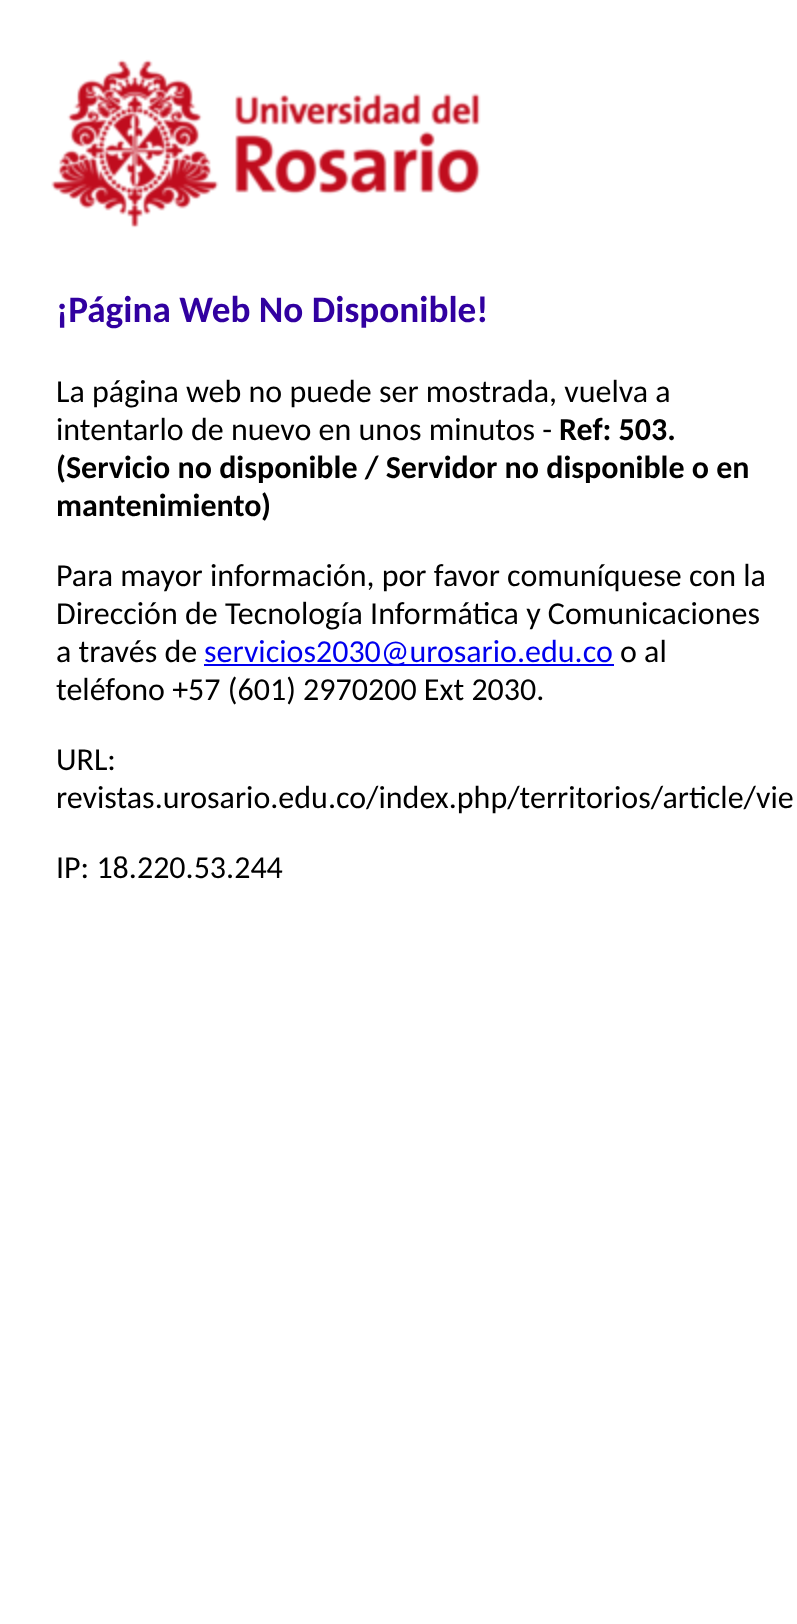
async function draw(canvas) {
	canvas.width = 797;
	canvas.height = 1624;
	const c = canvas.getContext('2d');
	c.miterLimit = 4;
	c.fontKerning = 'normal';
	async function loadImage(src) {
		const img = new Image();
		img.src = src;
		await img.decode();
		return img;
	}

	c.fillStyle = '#fff';
	c.fillRect(0, 0, 797, 1624);
	c.drawImage(await loadImage('img1.png'), 51, 59, 430, 169);
	c.font = 'bold 37.25px Carlito';
	c.fillStyle = '#3100a0';
	c.fillText('¡Página Web No Disponible!', 56, 322);
	c.font = '32px Carlito';
	c.fillStyle = '#000';
	c.fillText('La página web no puede ser mostrada, vuelva a', 56, 402);
	c.fillText('intentarlo de nuevo en unos minutos -', 56, 440);
	c.font = 'bold 32px Carlito';
	for (const [text, x, y] of [
		['Ref: 503.', 559, 440],
		['(Servicio no disponible / Servidor no disponible o en', 56, 478],
		['mantenimiento)', 56, 516],
	]) {
		c.fillText(text, x, y);
	}
	c.font = '32px Carlito';
	for (const [text, x, y] of [
		['Para mayor información, por favor comuníquese con la', 56, 586],
		['Dirección de Tecnología Informática y Comunicaciones', 56, 624],
		['a través de', 56, 662],
	]) {
		c.fillText(text, x, y);
	}
	c.fillStyle = '#00e';
	c.fillRect(204, 664, 410, 2);
	c.fillText('servicios2030@urosario.edu.co', 204, 662);
	c.fillStyle = '#000';
	for (const [text, x, y] of [
		['o al', 620, 662],
		['teléfono +57 (601) 2970200 Ext 2030.', 56, 700],
		['URL:', 56, 770],
		['revistas.urosario.edu.co/index.php/territorios/article/vie', 56, 808],
		['IP: 18.220.53.244', 56, 878],
	]) {
		c.fillText(text, x, y);
	}
}

draw(document.querySelector('canvas'));
